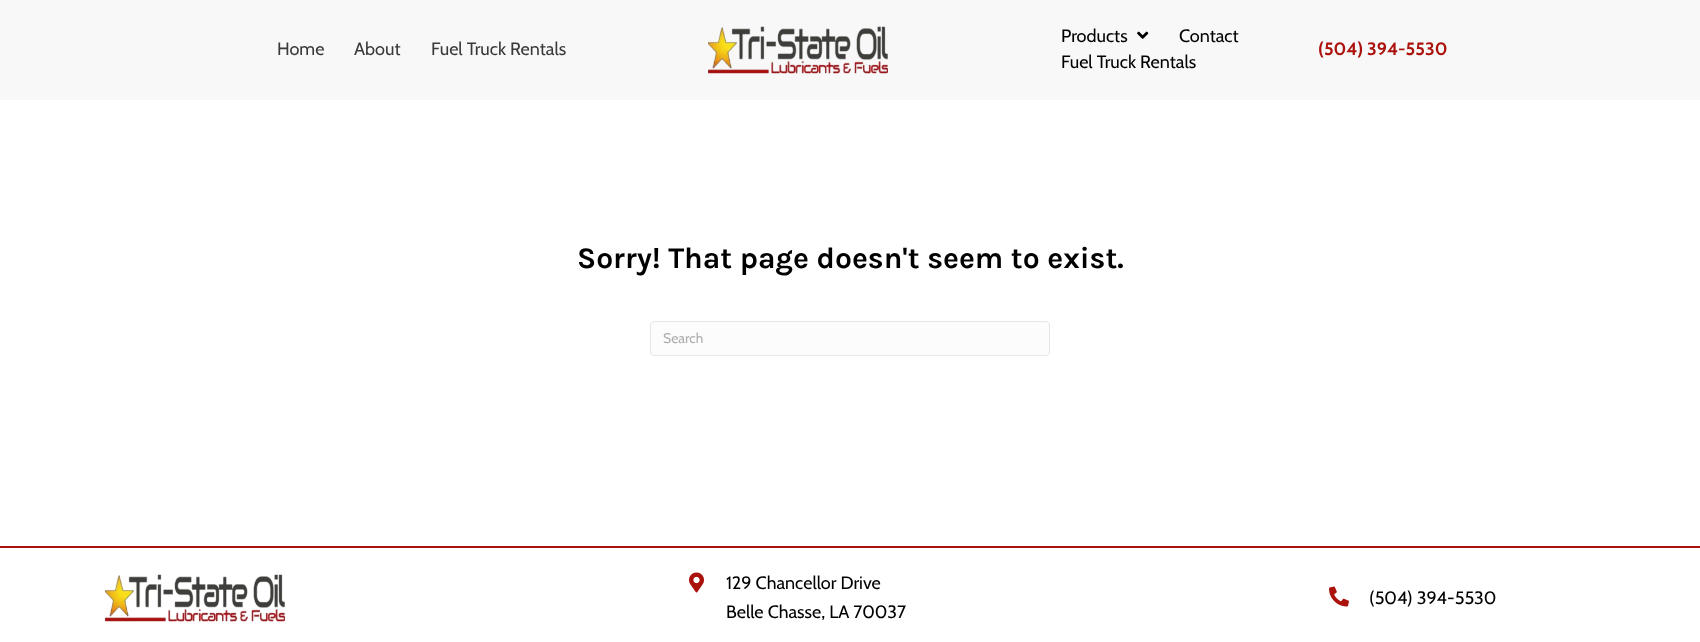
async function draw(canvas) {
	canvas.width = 1700;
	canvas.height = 642;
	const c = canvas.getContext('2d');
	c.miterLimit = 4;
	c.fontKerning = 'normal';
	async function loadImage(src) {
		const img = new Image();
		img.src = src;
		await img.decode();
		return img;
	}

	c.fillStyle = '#fff';
	c.fillRect(0, 0, 1700, 642);
	c.fillStyle = '#f8f8f8';
	c.fillRect(0, 0, 1700, 100);
	c.font = '18px Cabin';
	c.fillStyle = '#3a3a3a';
	for (const [text, x, y] of [
		['Home', 277, 55],
		['About', 354, 55],
		['Fuel Truck Rentals', 431, 55],
	]) {
		c.fillText(text, x, y);
	}
	c.drawImage(await loadImage('img1.png'), 708, 26, 180, 48);
	c.fillStyle = '#000';
	c.fillText('Products', 1061, 42);
	c.drawImage(await loadImage('img2.png'), 1137, 31, 12, 8);
	c.fillText('Contact', 1179, 42);
	c.fillText('Fuel Truck Rentals', 1061, 68);
	c.font = 'bold 18px Cabin';
	c.fillStyle = '#ab120c';
	c.fillText('(504) 394-5530', 1318, 55);
	c.font = 'bold 30px Karla';
	c.fillStyle = '#000';
	c.fillText('Sorry! That page doesn\'t seem to exist.', 577, 268);
	c.fillStyle = '#fcfcfc';
	c.beginPath();
	c.roundRect(650.5, 321.5, 399, 34, 3.5);
	c.fill();
	c.strokeStyle = '#e6e6e6';
	c.stroke();
	c.font = '14px Cabin';
	c.fillStyle = '#aeaeae';
	c.fillText('Search', 663, 343);
	c.fillStyle = '#ab120c';
	c.fillRect(0, 546, 1700, 2);
	c.drawImage(await loadImage('img3.png'), 105, 574, 180, 48);
	c.drawImage(await loadImage('img4.png'), 689, 572, 15, 21);
	c.font = '18px Cabin';
	c.fillStyle = '#000';
	c.fillText('129 Chancellor Drive', 726, 589);
	c.fillText('Belle Chasse, LA 70037', 726, 618);
	c.drawImage(await loadImage('img5.png'), 1329, 586, 20, 21);
	c.fillText('(504) 394-5530', 1369, 604);
}

draw(document.querySelector('canvas'));
